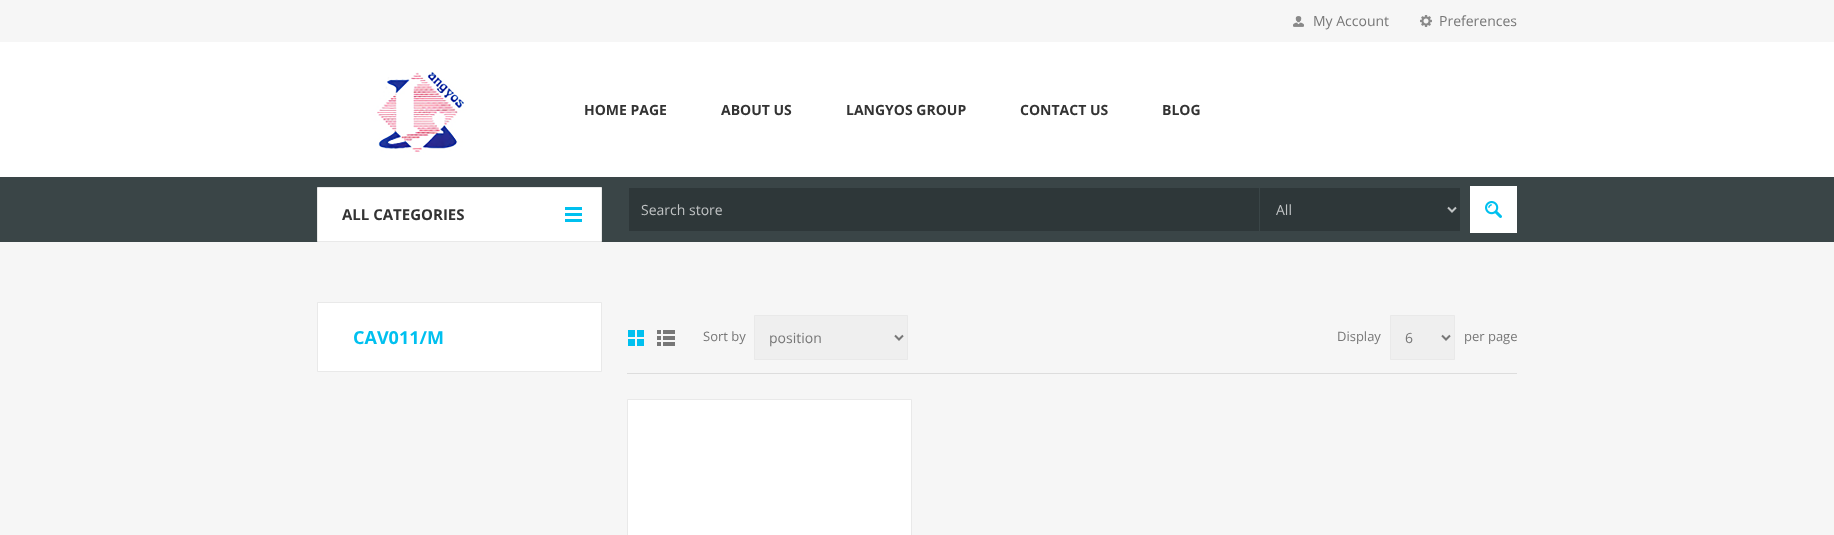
async function draw(canvas) {
	canvas.width = 1834;
	canvas.height = 535;
	const c = canvas.getContext('2d');
	c.miterLimit = 4;
	c.fontKerning = 'normal';
	async function loadImage(src) {
		const img = new Image();
		img.src = src;
		await img.decode();
		return img;
	}

	c.fillStyle = '#f6f6f6';
	c.fillRect(0, 0, 1834, 535);
	c.drawImage(await loadImage('img1.png'), 1293, 16, 11, 11);
	c.font = '14px Open Sans';
	c.fillStyle = '#777';
	c.fillText('My Account', 1313, 26);
	c.drawImage(await loadImage('img2.png'), 1420, 15, 12, 12);
	c.fillText('Preferences', 1439, 26);
	c.fillStyle = '#fff';
	c.fillRect(0, 42, 1834, 135);
	c.drawImage(await loadImage('img3.png'), 371, 62, 100, 95);
	c.font = 'bold 14px Open Sans';
	c.fillStyle = '#333';
	for (const [text, x, y] of [
		['HOME PAGE', 584, 115],
		['ABOUT US', 721, 115],
		['LANGYOS GROUP', 846, 115],
		['CONTACT US', 1020, 115],
		['BLOG', 1162, 115],
	]) {
		c.fillText(text, x, y);
	}
	c.fillStyle = '#3a4547';
	c.fillRect(0, 177, 1834, 65);
	c.fillStyle = '#fff';
	c.beginPath();
	c.rect(317.5, 187.5, 284, 54);
	c.fill();
	c.strokeStyle = '#e9e9e9';
	c.stroke();
	c.font = 'bold 15px Open Sans';
	c.fillStyle = '#333';
	c.fillText('ALL CATEGORIES', 342, 220);
	c.fillStyle = '#00c0ef';
	c.fillRect(565, 207, 17, 15);
	c.drawImage(await loadImage('img4.png'), 565, 210, 17, 9);
	c.fillStyle = '#2e3739';
	c.fillRect(629, 188, 630, 43);
	c.font = '14px Open Sans';
	c.fillStyle = '#c0c3c4';
	c.fillText('Search store', 641, 215);
	c.fillStyle = '#2e3739';
	c.fillRect(1260, 188, 200, 43);
	c.beginPath();
	c.moveTo(1448, 207.5);
	c.lineTo(1452, 211.5);
	c.lineTo(1456, 207.5);
	c.strokeStyle = '#c0c3c4';
	c.lineWidth = 2;
	c.stroke();
	c.fillStyle = '#c0c3c4';
	c.fillText('All', 1276, 215);
	c.fillStyle = '#00c0ef';
	c.fillRect(1485, 201, 17, 17);
	c.drawImage(await loadImage('img5.png'), 1470, 186, 47, 47);
	c.fillStyle = '#fff';
	c.beginPath();
	c.rect(317.5, 302.5, 284, 69);
	c.fill();
	c.strokeStyle = '#e9e9e9';
	c.lineWidth = 1;
	c.stroke();
	c.font = 'bold 18px Open Sans';
	c.fillStyle = '#00c0ef';
	c.fillText('CAV011/M', 353, 344);
	c.fillStyle = '#ddd';
	c.fillRect(627, 373, 890, 1);
	c.fillStyle = '#00c0ef';
	c.fillRect(628, 330, 16, 16);
	c.drawImage(await loadImage('img6.png'), 627, 330, 18, 16);
	c.fillStyle = '#777';
	c.fillRect(657, 330, 18, 16);
	c.drawImage(await loadImage('img7.png'), 657, 330, 18, 16);
	c.font = '13px Open Sans';
	c.fillText('Sort by', 703, 341);
	c.fillStyle = '#efefef';
	c.beginPath();
	c.rect(754.5, 315.5, 153, 44);
	c.fill();
	c.stroke();
	c.beginPath();
	c.moveTo(895, 335.5);
	c.lineTo(899, 339.5);
	c.lineTo(903, 335.5);
	c.strokeStyle = '#777';
	c.lineWidth = 2;
	c.stroke();
	c.font = '14px Open Sans';
	c.fillStyle = '#777';
	c.fillText('position', 769, 343);
	c.font = '13px Open Sans';
	c.fillText('Display', 1337, 341);
	c.fillStyle = '#efefef';
	c.beginPath();
	c.rect(1390.5, 315.5, 64, 44);
	c.fill();
	c.strokeStyle = '#e9e9e9';
	c.lineWidth = 1;
	c.stroke();
	c.beginPath();
	c.moveTo(1442, 335.5);
	c.lineTo(1446, 339.5);
	c.lineTo(1450, 335.5);
	c.strokeStyle = '#777';
	c.lineWidth = 2;
	c.stroke();
	c.font = '14px Open Sans';
	c.fillStyle = '#777';
	c.fillText('6', 1405, 343);
	c.font = '13px Open Sans';
	c.fillText('per page', 1464, 341);
	c.fillStyle = '#fff';
	c.beginPath();
	c.rect(627.5, 399.5, 284, 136);
	c.fill();
	c.strokeStyle = '#e9e9e9';
	c.lineWidth = 1;
	c.stroke();
}

draw(document.querySelector('canvas'));
